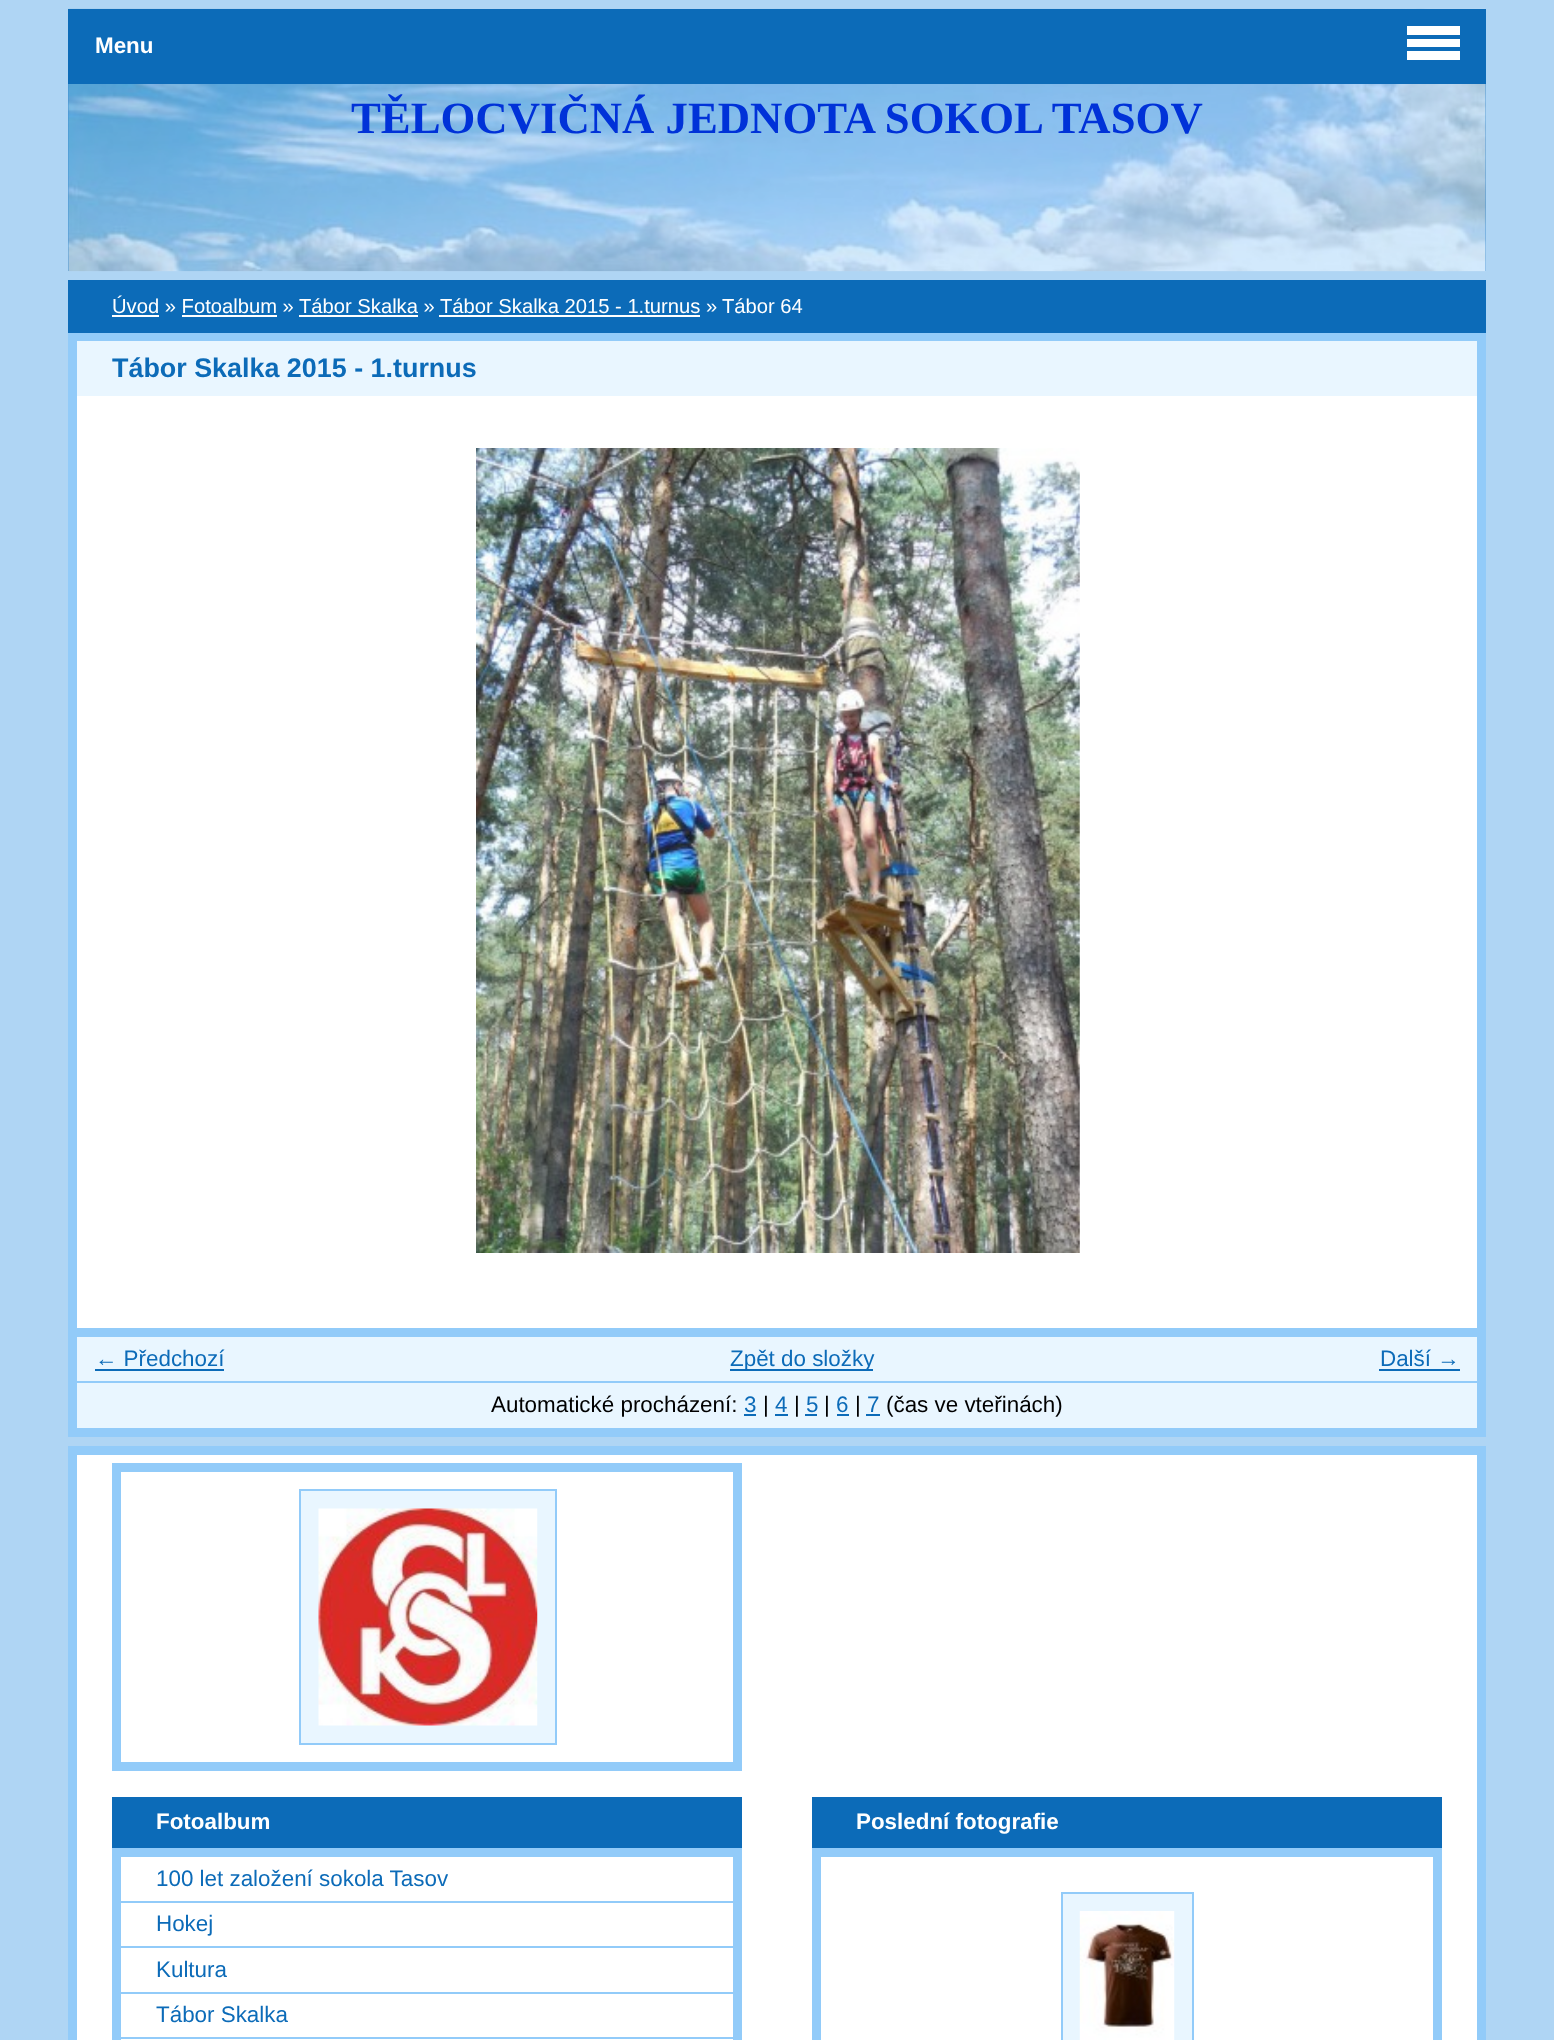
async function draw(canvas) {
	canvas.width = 1554;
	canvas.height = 2040;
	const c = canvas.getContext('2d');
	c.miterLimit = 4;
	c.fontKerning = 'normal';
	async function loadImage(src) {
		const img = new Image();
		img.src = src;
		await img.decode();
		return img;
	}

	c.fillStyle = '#afd5f4';
	c.fillRect(0, 0, 1554, 2040);
	c.fillStyle = '#0c6bb8';
	c.fillRect(68, 84, 1418, 187);
	c.drawImage(await loadImage('img4.png'), 68, 8, 1418, 264);
	for (const [x, y, w, h, color] of [
		[68, 9, 1418, 75, '#0c6bb8'],
		[1407, 26, 53, 9, '#fff'],
		[1407, 39, 53, 8, '#fff'],
		[1407, 51, 53, 9, '#fff'],
	]) {
		c.fillStyle = color;
		c.fillRect(x, y, w, h);
	}
	c.beginPath();
	c.rect(72.5, 1450.5, 1409, 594);
	c.fill();
	c.strokeStyle = '#92cbf9';
	c.lineWidth = 9;
	c.stroke();
	c.font = 'bold 22.4px Liberation Sans';
	c.fillText('Menu', 95, 53);
	c.strokeRect(116.5, 1467.5, 621, 299);
	c.fillStyle = '#e9f6ff';
	c.beginPath();
	c.rect(300, 1490, 256, 254);
	c.fill();
	c.lineWidth = 2;
	c.stroke();
	c.drawImage(await loadImage('img1.png'), 318, 1508, 220, 218);
	c.fillStyle = '#0c6bb8';
	c.fillRect(112, 1797, 630, 51);
	c.fillStyle = '#fff';
	c.fillText('Fotoalbum', 156, 1829);
	c.lineWidth = 9;
	c.strokeRect(116.5, 1852.5, 621, 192);
	c.fillStyle = '#92cbf9';
	c.fillRect(121, 1901, 612, 2);
	c.font = '22.4px Liberation Sans';
	c.fillStyle = '#0c6bb8';
	c.fillText('100 let založení sokola Tasov', 156, 1886);
	c.fillStyle = '#92cbf9';
	c.fillRect(121, 1946, 612, 2);
	c.fillStyle = '#0c6bb8';
	c.fillText('Hokej', 156, 1931);
	c.fillStyle = '#92cbf9';
	c.fillRect(121, 1992, 612, 2);
	c.fillStyle = '#0c6bb8';
	c.fillText('Kultura', 156, 1977);
	c.fillStyle = '#92cbf9';
	c.fillRect(121, 2037, 612, 2);
	c.fillStyle = '#0c6bb8';
	c.fillText('Tábor Skalka', 156, 2022);
	c.fillRect(812, 1797, 630, 51);
	c.font = 'bold 22.4px Liberation Sans';
	c.fillStyle = '#fff';
	c.fillText('Poslední fotografie', 856, 1829);
	c.strokeRect(816.5, 1852.5, 621, 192);
	c.fillStyle = '#e9f6ff';
	c.beginPath();
	c.rect(1062, 1893, 131, 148);
	c.fill();
	c.lineWidth = 2;
	c.stroke();
	c.drawImage(await loadImage('img2.png'), 1079, 1911, 96, 129);
	c.fillStyle = '#0c6bb8';
	c.fillRect(68, 280, 1418, 53);
	c.font = '20.2px Liberation Sans';
	c.fillStyle = '#fff';
	c.fillText('Úvod » Fotoalbum »', 112, 313);
	c.fillRect(112, 315, 47, 2);
	c.fillText('Tábor Skalka »', 299, 313);
	c.fillRect(299, 315, 119, 2);
	c.fillText('Tábor Skalka 2015 - 1.turnus »', 440, 313);
	c.fillRect(439, 315, 261, 2);
	c.fillText('Tábor 64', 722, 313);
	c.fillRect(182, 315, 95, 2);
	c.fillRect(77, 396, 1400, 932);
	c.lineWidth = 9;
	c.strokeRect(72.5, 337.5, 1409, 1095);
	c.fillStyle = '#e9f6ff';
	c.fillRect(77, 341, 1400, 55);
	c.font = 'bold 26.9px Liberation Sans';
	c.fillStyle = '#0c6bb8';
	c.fillText('Tábor Skalka 2015 - 1.turnus', 112, 377);
	c.drawImage(await loadImage('img3.png'), 476, 448, 604, 805);
	c.fillStyle = '#e9f6ff';
	c.fillRect(77, 1337, 1400, 44);
	c.fillStyle = '#92cbf9';
	c.fillRect(77, 1328, 1400, 9);
	c.font = '22.4px Liberation Sans';
	c.fillStyle = '#0c6bb8';
	c.fillText('← Předchozí', 95, 1366);
	c.fillRect(95, 1369, 129, 2);
	c.fillRect(730, 1369, 143, 2);
	c.fillText('Zpět do složky', 730, 1366);
	c.fillText('Další →', 1380, 1366);
	for (const [x, y, w, h, color] of [
		[1379, 1369, 81, 2, '#0c6bb8'],
		[77, 1383, 1400, 45, '#e9f6ff'],
		[77, 1381, 1400, 2, '#92cbf9'],
	]) {
		c.fillStyle = color;
		c.fillRect(x, y, w, h);
	}
	c.fillStyle = '#000';
	c.fillText('Automatické procházení:', 491, 1412);
	c.fillStyle = '#0c6bb8';
	c.fillText('3', 744, 1412);
	c.fillRect(744, 1414, 12, 2);
	c.fillStyle = '#000';
	c.fillText('|', 763, 1412);
	c.fillStyle = '#0c6bb8';
	c.fillText('4', 775, 1412);
	c.fillRect(775, 1414, 13, 2);
	c.fillStyle = '#000';
	c.fillText('|', 794, 1412);
	c.fillStyle = '#0c6bb8';
	c.fillText('5', 806, 1412);
	c.fillRect(805, 1414, 12, 2);
	c.fillStyle = '#000';
	c.fillText('|', 824, 1412);
	c.fillStyle = '#0c6bb8';
	c.fillText('6', 836, 1412);
	c.fillRect(837, 1414, 12, 2);
	c.fillStyle = '#000';
	c.fillText('|', 855, 1412);
	c.fillStyle = '#0c6bb8';
	c.fillText('7', 867, 1412);
	c.fillRect(866, 1414, 14, 2);
	c.fillStyle = '#000';
	c.fillText('(čas ve vteřinách)', 886, 1412);
	c.fillStyle = '#92cbf966';
	c.fillRect(68, 84, 1418, 187);
	c.font = 'bold 44.75px Liberation Serif';
	c.fillStyle = '#0032d8';
	c.fillText('TĚLOCVIČNÁ JEDNOTA SOKOL TASOV', 351, 133);
}

draw(document.querySelector('canvas'));
